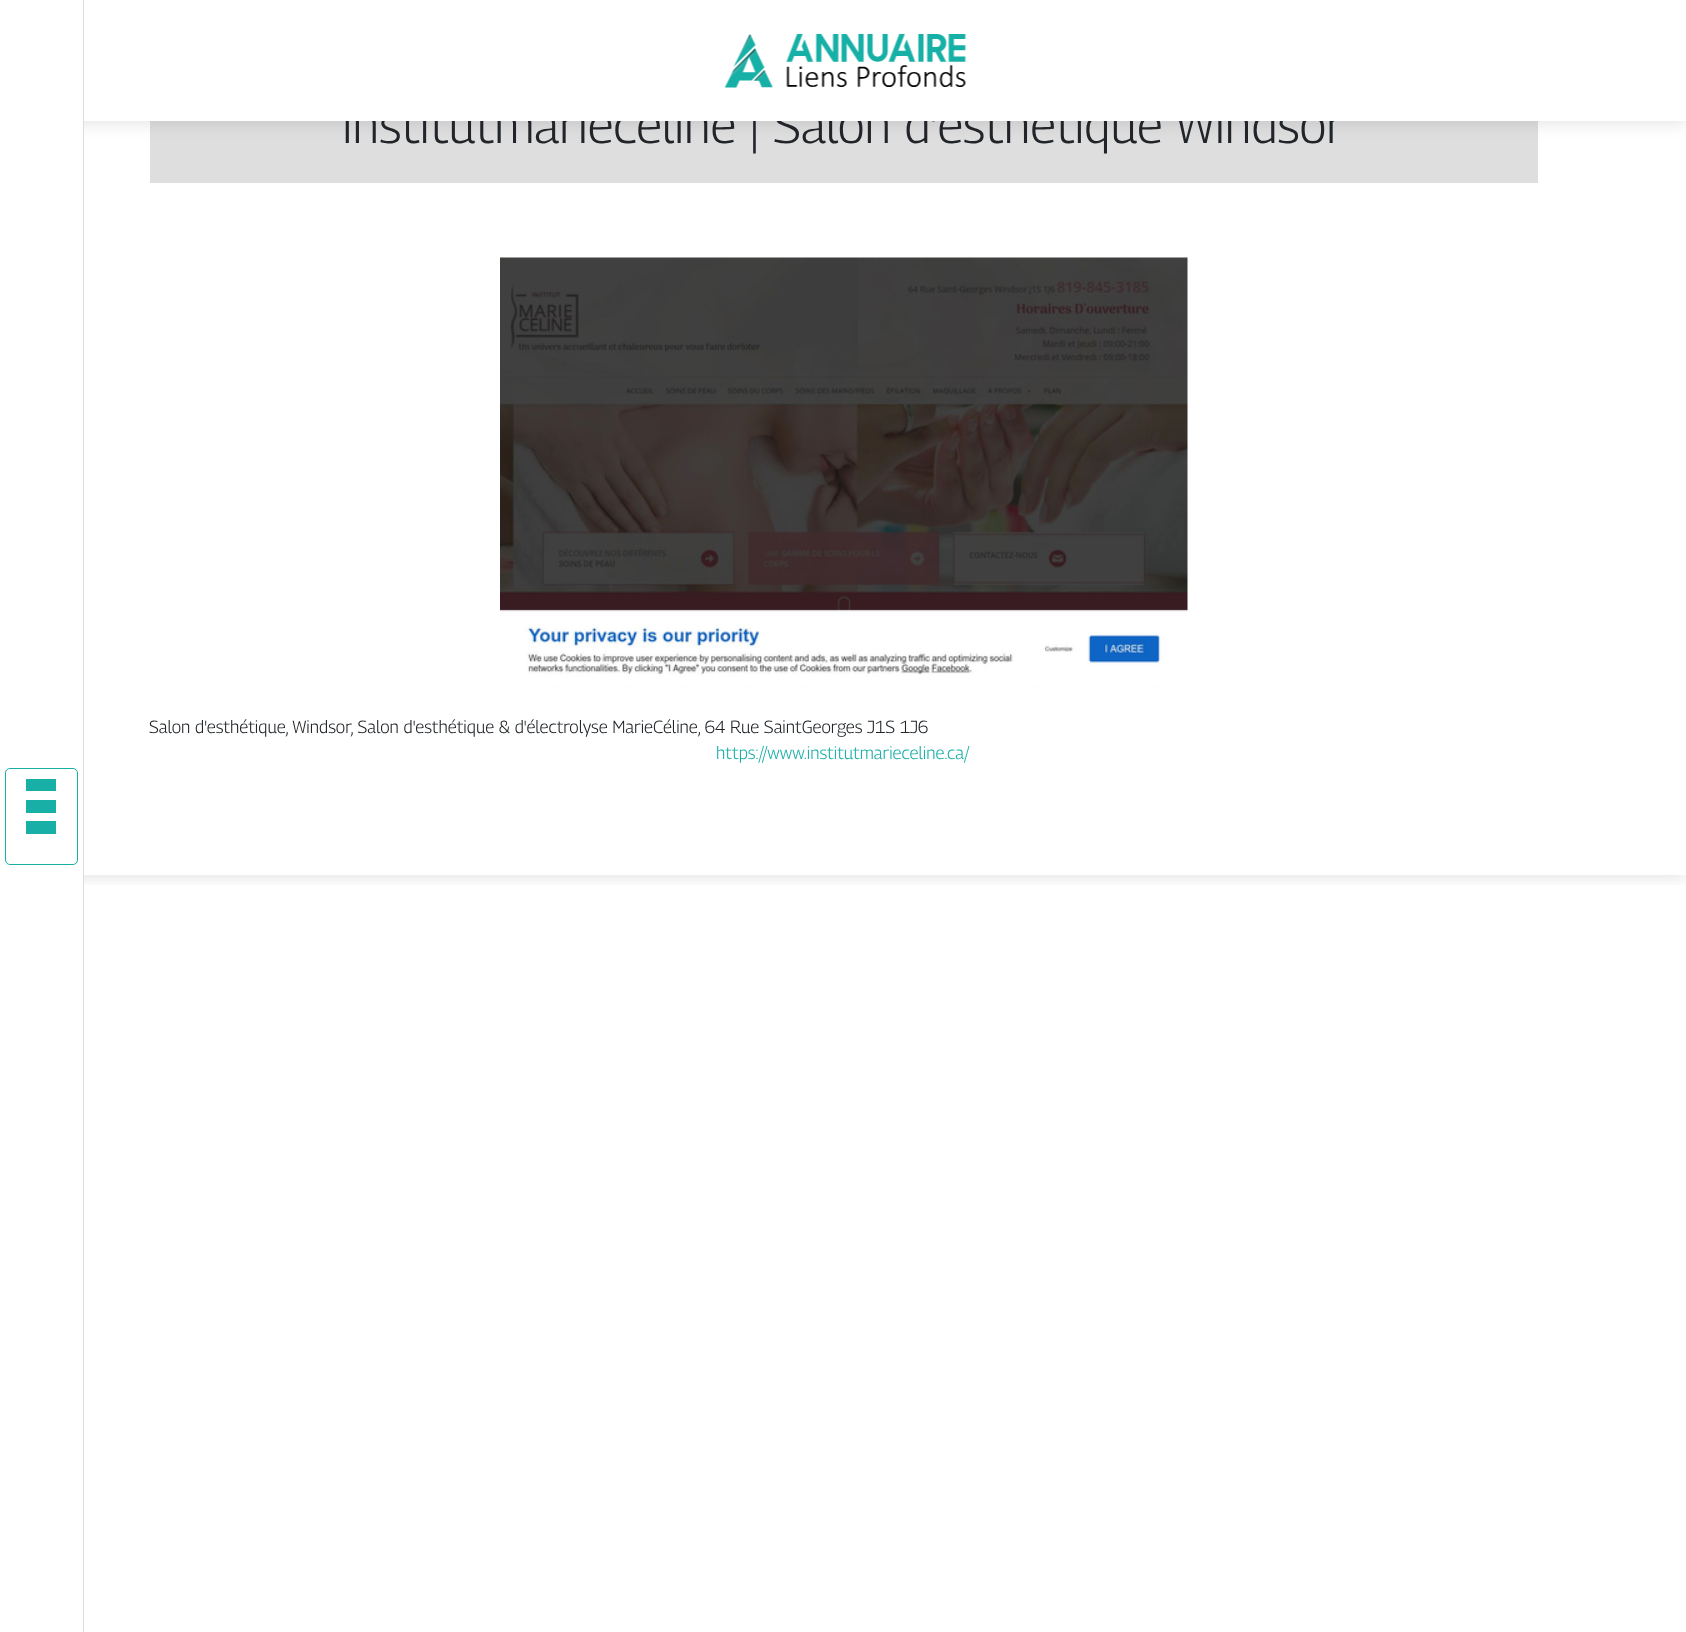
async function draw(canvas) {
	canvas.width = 1686;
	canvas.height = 1632;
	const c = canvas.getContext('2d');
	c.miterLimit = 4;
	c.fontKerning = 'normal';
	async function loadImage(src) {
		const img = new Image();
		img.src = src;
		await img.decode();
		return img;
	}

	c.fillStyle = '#fff';
	c.fillRect(0, 0, 1686, 1632);
	c.save();
	c.beginPath();
	c.rect(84, 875, 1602, 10);
	c.clip();
	c.fillStyle = '#0000001a';
	c.filter = 'blur(8px)';
	c.beginPath();
	c.rect(0, 53, 1686, 825);
	c.fill();
	c.filter = 'none';
	c.restore();
	c.fillStyle = '#dedede';
	c.fillRect(150, 121, 1388, 62);
	c.fillStyle = '#0000001a';
	c.filter = 'blur(8px)';
	c.beginPath();
	c.rect(0, 3, 1686, 121);
	c.fill();
	c.filter = 'none';
	c.font = '100 50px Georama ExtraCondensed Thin';
	c.fillStyle = '#212529';
	c.fillText('Institutmarieceline | Salon d’esthétique Windsor', 342, 143);
	for (const [x, y, w, h, color] of [
		[84, 0, 1602, 121, '#fff'],
		[0, 0, 83, 888, '#fff'],
		[83, 0, 1, 1632, '#ddd'],
	]) {
		c.fillStyle = color;
		c.fillRect(x, y, w, h);
	}
	c.beginPath();
	c.roundRect(5.5, 768.5, 72, 96, 4.5);
	c.strokeStyle = '#18afa6';
	c.stroke();
	for (const [x, y, w, h, color] of [
		[26, 779, 30, 12, '#18afa6'],
		[26, 800, 30, 13, '#18afa6'],
		[26, 821, 30, 13, '#18afa6'],
	]) {
		c.fillStyle = color;
		c.fillRect(x, y, w, h);
	}
	c.drawImage(await loadImage('img1.png'), 724, 34, 242, 54);
	c.drawImage(await loadImage('img2.png'), 500, 257, 688, 430);
	c.font = '100 17.5px Georama ExtraCondensed Thin';
	c.fillStyle = '#212529';
	c.fillText('Salon d\'esthétique, Windsor, Salon d\'esthétique & d\'électrolyse MarieCéline, 64 Rue SaintGeorges J1S 1J6', 149, 733);
	c.fillStyle = '#18afa6';
	c.fillText('https://www.institutmarieceline.ca/', 716, 759);
}

draw(document.querySelector('canvas'));
